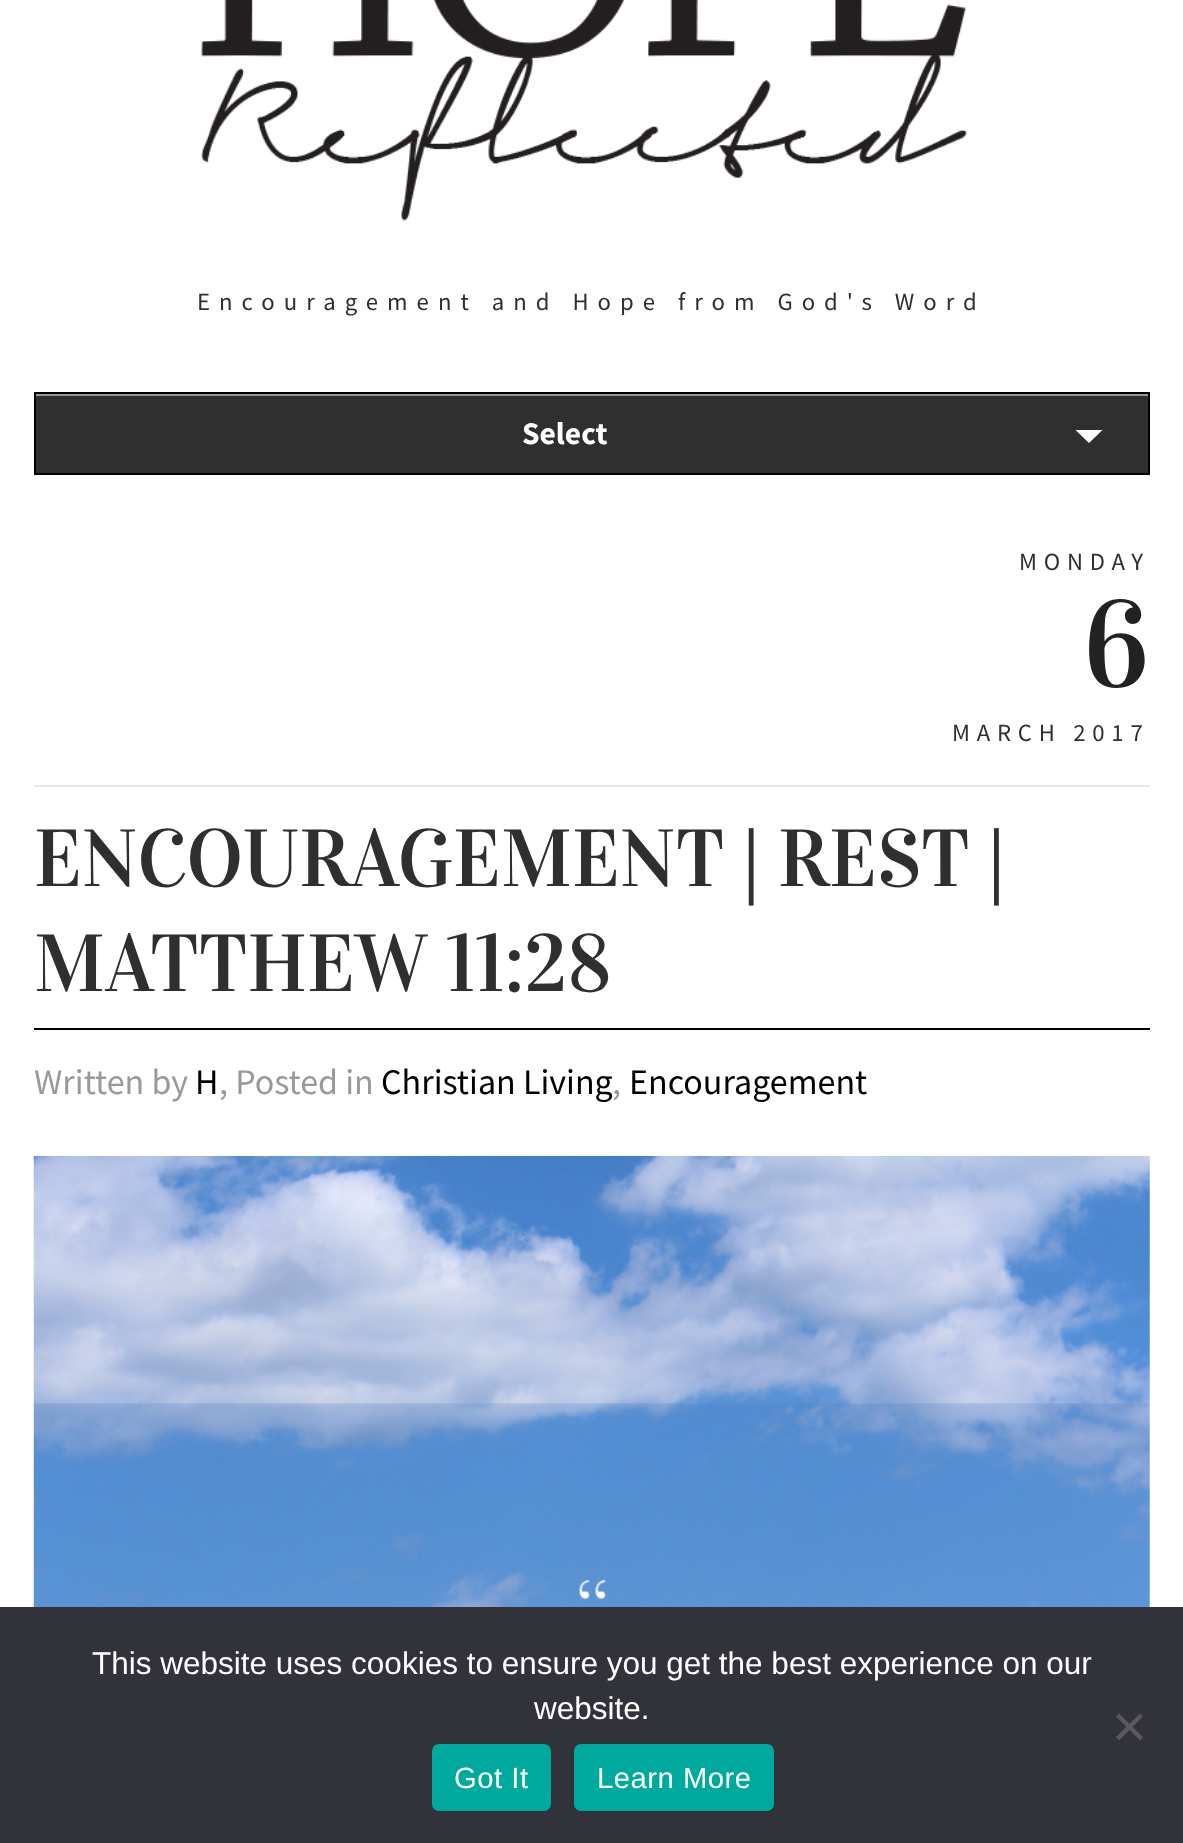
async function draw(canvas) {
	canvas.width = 1183;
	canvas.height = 1843;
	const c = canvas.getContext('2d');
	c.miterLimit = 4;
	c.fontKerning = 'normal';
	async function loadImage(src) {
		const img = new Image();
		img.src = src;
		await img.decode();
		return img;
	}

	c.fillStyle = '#fff';
	c.fillRect(0, 0, 1183, 1843);
	c.drawImage(await loadImage('img1.png'), 201, 0, 766, 221);
	c.letterSpacing = '9px';
	c.font = '24.75px Source Sans Pro';
	c.fillStyle = '#2f2f2f';
	c.fillText('Encouragement and Hope from God\'s Word', 197, 310);
	c.fillRect(36, 396, 1112, 77);
	c.fillStyle = '#979797';
	c.fillRect(36, 394, 1112, 2);
	c.strokeStyle = '#000';
	c.lineWidth = 2;
	c.strokeRect(35, 393, 1114, 81);
	c.letterSpacing = '0px';
	c.font = 'bold 31.5px Source Sans Pro';
	c.fillStyle = '#fff';
	c.fillText('Select', 522, 444);
	c.beginPath();
	c.moveTo(1075.5, 430);
	c.lineTo(1102.5, 430);
	c.lineTo(1089, 443);
	c.closePath();
	c.fill();
	c.fillStyle = '#e4e5e7';
	c.fillRect(34, 785, 1116, 2);
	c.letterSpacing = '6.75px';
	c.font = '24.75px Source Sans Pro';
	c.fillStyle = '#2f2f2f';
	c.fillText('MONDAY', 1019, 570);
	c.letterSpacing = '0px';
	c.font = '122px Vidaloka';
	c.fillStyle = '#222';
	c.fillText('6', 1083, 686);
	c.letterSpacing = '6.75px';
	c.font = '24.75px Source Sans Pro';
	c.fillStyle = '#2f2f2f';
	c.fillText('MARCH 2017', 952, 741);
	c.fillStyle = '#000';
	c.fillRect(34, 1028, 1116, 2);
	c.letterSpacing = '0px';
	c.font = '81px Vidaloka';
	c.fillStyle = '#2f2f2f';
	c.fillText('ENCOURAGEMENT | REST |', 34, 886);
	c.fillText('MATTHEW 11:28', 34, 991);
	c.font = '36px Source Sans Pro';
	c.fillStyle = '#999';
	c.fillText('Written by', 34, 1094);
	c.fillStyle = '#000';
	c.fillText('H', 195, 1094);
	c.fillStyle = '#999';
	c.fillText(', Posted in', 219, 1094);
	c.fillStyle = '#000';
	c.fillText('Christian Living', 381, 1094);
	c.fillStyle = '#999';
	c.fillText(',', 612, 1094);
	c.fillStyle = '#000';
	c.fillText('Encouragement', 629, 1094);
	c.drawImage(await loadImage('img2.png'), 33, 1156, 1117, 451);
	c.fillStyle = '#32323a';
	c.fillRect(0, 1607, 1183, 236);
	c.font = '31.5px Liberation Sans';
	c.fillStyle = '#fff';
	c.fillText('This website uses cookies to ensure you get the best experience on our', 92, 1674);
	c.fillText('website.', 534, 1719);
	c.fillStyle = '#59595d';
	c.beginPath();
	c.moveTo(1140, 1713.5);
	c.lineTo(1143, 1716.5);
	c.lineTo(1119, 1740.5);
	c.lineTo(1116, 1737);
	c.closePath();
	c.fill();
	c.beginPath();
	c.moveTo(1116, 1716.5);
	c.lineTo(1119, 1713.5);
	c.lineTo(1143, 1737);
	c.lineTo(1140, 1740.5);
	c.closePath();
	c.fill();
	c.fillStyle = '#00a99d';
	c.beginPath();
	c.roundRect(432, 1744, 119, 67, 7);
	c.fill();
	c.letterSpacing = '0.5px';
	c.font = '29.25px Liberation Sans';
	c.fillStyle = '#fff';
	c.fillText('Got It', 454, 1788);
	c.fillStyle = '#00a99d';
	c.beginPath();
	c.roundRect(574, 1744, 200, 67, 7);
	c.fill();
	c.fillStyle = '#fff';
	c.fillText('Learn More', 597, 1788);
}

draw(document.querySelector('canvas'));
